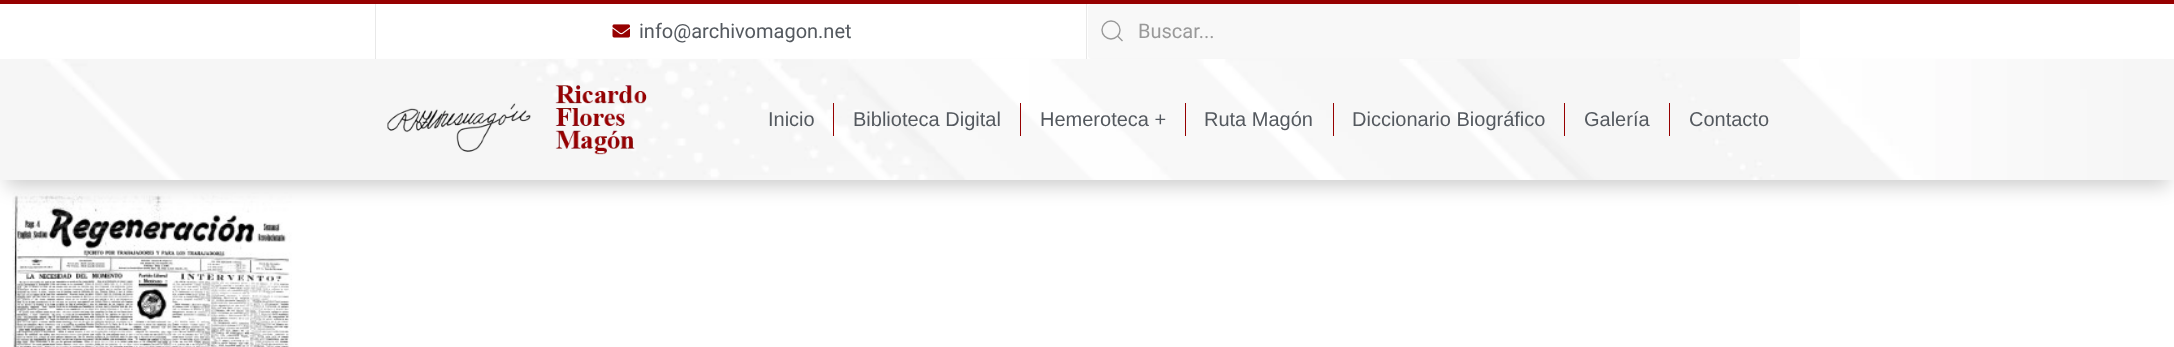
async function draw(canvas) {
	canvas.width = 2174;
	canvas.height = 347;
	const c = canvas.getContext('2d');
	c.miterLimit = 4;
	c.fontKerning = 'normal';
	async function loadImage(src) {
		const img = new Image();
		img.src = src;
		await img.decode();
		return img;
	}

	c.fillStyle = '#fff';
	c.fillRect(0, 0, 2174, 347);
	for (const [x, y, w, h, color] of [
		[0, 0, 2174, 4, '#960000'],
		[1086, 4, 1, 55, '#e8e8e8'],
		[375, 4, 1, 55, '#e8e8e8'],
	]) {
		c.fillStyle = color;
		c.fillRect(x, y, w, h);
	}
	c.drawImage(await loadImage('img1.png'), 612, 24, 18, 14);
	c.font = '20px Roboto';
	c.fillStyle = '#54595f';
	c.fillText('info@archivomagon.net', 639, 38);
	c.fillStyle = '#f8f8f8';
	c.beginPath();
	c.roundRect(1088, 4, 712, 55, 4);
	c.fill();
	c.beginPath();
	c.arc(1111, 30, 9, 0, 2 * Math.PI);
	c.strokeStyle = '#999';
	c.lineWidth = 1.4;
	c.stroke();
	c.beginPath();
	c.moveTo(1117.5, 36);
	c.lineTo(1122.5, 41);
	c.closePath();
	c.stroke();
	c.fillStyle = '#999';
	c.fillText('Buscar...', 1138, 38);
	c.drawImage(await loadImage('img4.png'), 12, 192, 280, 155);
	c.fillStyle = '#00000033';
	c.filter = 'blur(9.5px)';
	c.beginPath();
	c.rect(6, 78, 2163, 108);
	c.fill();
	c.filter = 'none';
	c.drawImage(await loadImage('img2.png'), 0, 59, 2174, 121);
	c.drawImage(await loadImage('img3.png'), 387, 85, 260, 70);
	c.font = '20px Liberation Sans';
	c.fillStyle = '#54595f';
	c.fillText('Inicio', 768, 126);
	c.fillStyle = '#960000';
	c.fillRect(833, 103, 1, 33);
	c.fillStyle = '#54595f';
	c.fillText('Biblioteca Digital', 853, 126);
	c.fillStyle = '#960000';
	c.fillRect(1020, 103, 1, 33);
	c.fillStyle = '#54595f';
	c.fillText('Hemeroteca +', 1040, 126);
	c.fillStyle = '#960000';
	c.fillRect(1185, 103, 1, 33);
	c.fillStyle = '#54595f';
	c.fillText('Ruta Magón', 1204, 126);
	c.fillStyle = '#960000';
	c.fillRect(1333, 103, 1, 33);
	c.fillStyle = '#54595f';
	c.fillText('Diccionario Biográfico', 1352, 126);
	c.fillStyle = '#960000';
	c.fillRect(1564, 103, 1, 33);
	c.fillStyle = '#54595f';
	c.fillText('Galería', 1584, 126);
	c.fillStyle = '#960000';
	c.fillRect(1669, 103, 1, 33);
	c.fillStyle = '#54595f';
	c.fillText('Contacto', 1689, 126);
}

draw(document.querySelector('canvas'));
